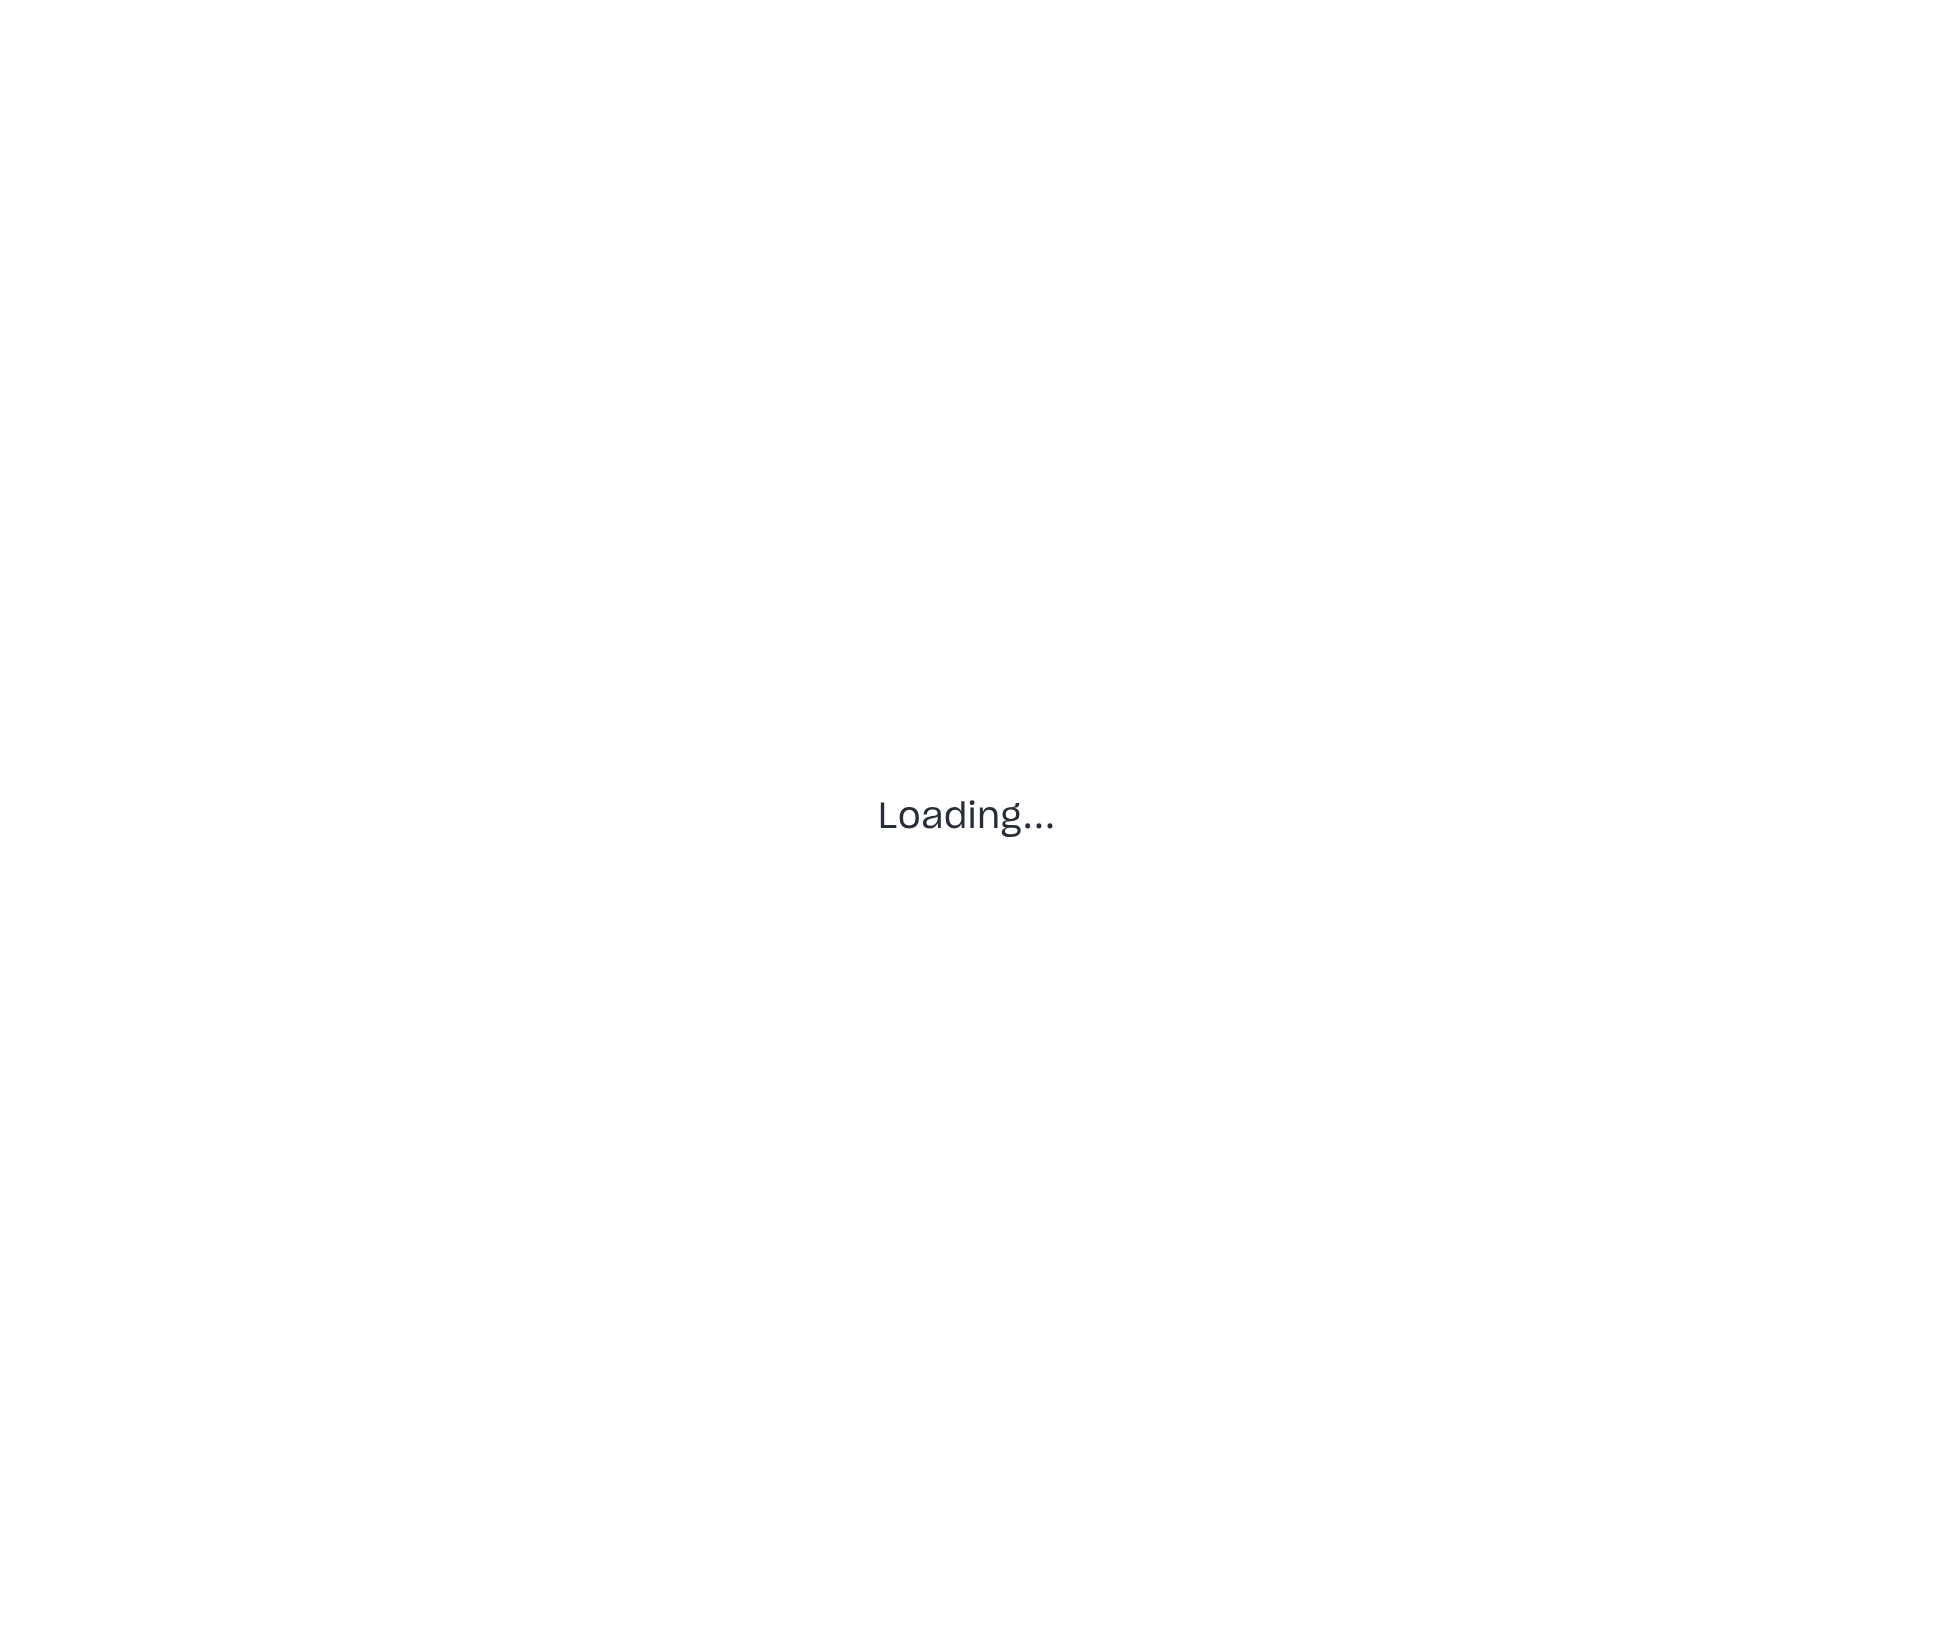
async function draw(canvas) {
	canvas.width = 1933;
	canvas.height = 1627;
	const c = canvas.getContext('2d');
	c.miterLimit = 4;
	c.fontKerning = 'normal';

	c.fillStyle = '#fff';
	c.fillRect(0, 0, 1933, 1627);
	c.letterSpacing = '0.75px';
	c.font = '36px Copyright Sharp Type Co';
	c.fillStyle = '#292d38';
	c.fillText('Loading...', 878, 828);
}

draw(document.querySelector('canvas'));
